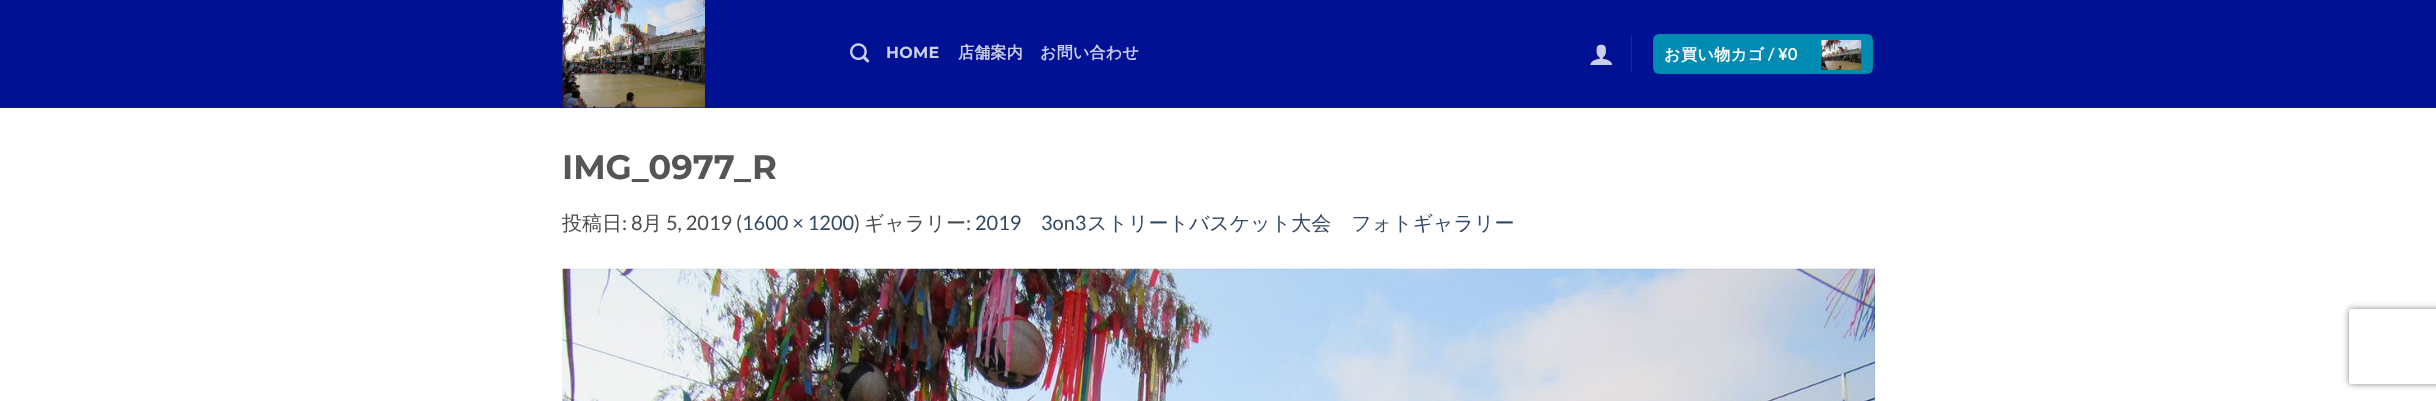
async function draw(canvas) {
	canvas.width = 2436;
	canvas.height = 401;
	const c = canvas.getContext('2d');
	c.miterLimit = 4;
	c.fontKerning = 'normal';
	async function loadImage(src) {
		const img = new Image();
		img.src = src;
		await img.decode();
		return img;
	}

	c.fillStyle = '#fff';
	c.fillRect(0, 0, 2436, 401);
	c.fillStyle = '#001193';
	c.fillRect(0, 0, 2436, 108);
	c.drawImage(await loadImage('img1.png'), 562, 0, 143, 108);
	c.drawImage(await loadImage('img2.png'), 850, 43, 20, 20);
	c.letterSpacing = '0.25px';
	c.font = 'bold 16px Montserrat';
	c.fillStyle = '#cccfe9';
	c.fillText('HOME', 886, 58);
	c.font = 'bold 16px WenQuanYi Zen Hei';
	c.fillText('店舗案内', 958, 58);
	c.fillText('お問い合わせ', 1040, 58);
	c.drawImage(await loadImage('img3.png'), 1590, 44, 23, 21);
	c.fillStyle = '#1a299e';
	c.fillRect(1631, 35, 1, 38);
	c.fillStyle = '#008cb2';
	c.beginPath();
	c.roundRect(1653, 34, 220, 40, 6);
	c.fill();
	c.strokeStyle = '#0000000d';
	c.strokeRect(1653.5, 34.5, 219, 39);
	c.letterSpacing = '0.5px';
	c.fillStyle = '#fff';
	c.fillText('お買い物カゴ', 1664, 60);
	c.font = 'bold 16px Lato';
	c.fillText('/ ¥0', 1768, 60);
	c.drawImage(await loadImage('img4.png'), 1821, 40, 41, 30);
	c.letterSpacing = '0px';
	c.font = 'bold 34px Montserrat';
	c.fillStyle = '#555';
	c.fillText('IMG_0977_R', 562, 179);
	c.font = '500 20px WenQuanYi Zen Hei';
	c.fillStyle = '#4a4a4a';
	c.fillText('投稿日', 562, 230);
	c.font = '20px Lato';
	c.fillText(': 8', 622, 230);
	c.font = '500 20px WenQuanYi Zen Hei';
	c.fillText('月', 642, 230);
	c.font = '20px Lato';
	c.fillText('5, 2019 (', 666, 230);
	c.fillStyle = '#334862';
	c.fillText('1600 × 1200', 742, 230);
	c.fillStyle = '#4a4a4a';
	c.fillText(')', 854, 230);
	c.font = '500 20px WenQuanYi Zen Hei';
	c.fillText('ギャラリー', 864, 230);
	c.font = '20px Lato';
	c.fillText(':', 966, 230);
	c.fillStyle = '#334862';
	c.fillText('2019', 975, 230);
	c.fillText('3on3', 1041, 230);
	c.font = '500 20px WenQuanYi Zen Hei';
	c.fillText('ストリートバスケット大会　フォトギャラリー', 1087, 230);
	c.drawImage(await loadImage('img5.png'), 562, 268, 1313, 133);
	c.save();
	c.beginPath();
	c.moveTo(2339, 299);
	c.lineTo(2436, 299);
	c.lineTo(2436, 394);
	c.lineTo(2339, 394);
	c.closePath();
	c.moveTo(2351.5, 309);
	c.lineTo(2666.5, 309);
	c.bezierCurveTo(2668, 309, 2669, 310, 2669, 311.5);
	c.lineTo(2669, 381.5);
	c.bezierCurveTo(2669, 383, 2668, 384, 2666.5, 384);
	c.lineTo(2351.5, 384);
	c.bezierCurveTo(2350, 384, 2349, 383, 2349, 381.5);
	c.lineTo(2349, 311.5);
	c.bezierCurveTo(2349, 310, 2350, 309, 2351.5, 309);
	c.closePath();
	c.clip('evenodd');
	c.fillStyle = '#808080';
	c.filter = 'blur(3px)';
	c.beginPath();
	c.roundRect(2349, 309, 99, 75, 2.5);
	c.fill();
	c.filter = 'none';
	c.restore();
}

draw(document.querySelector('canvas'));
